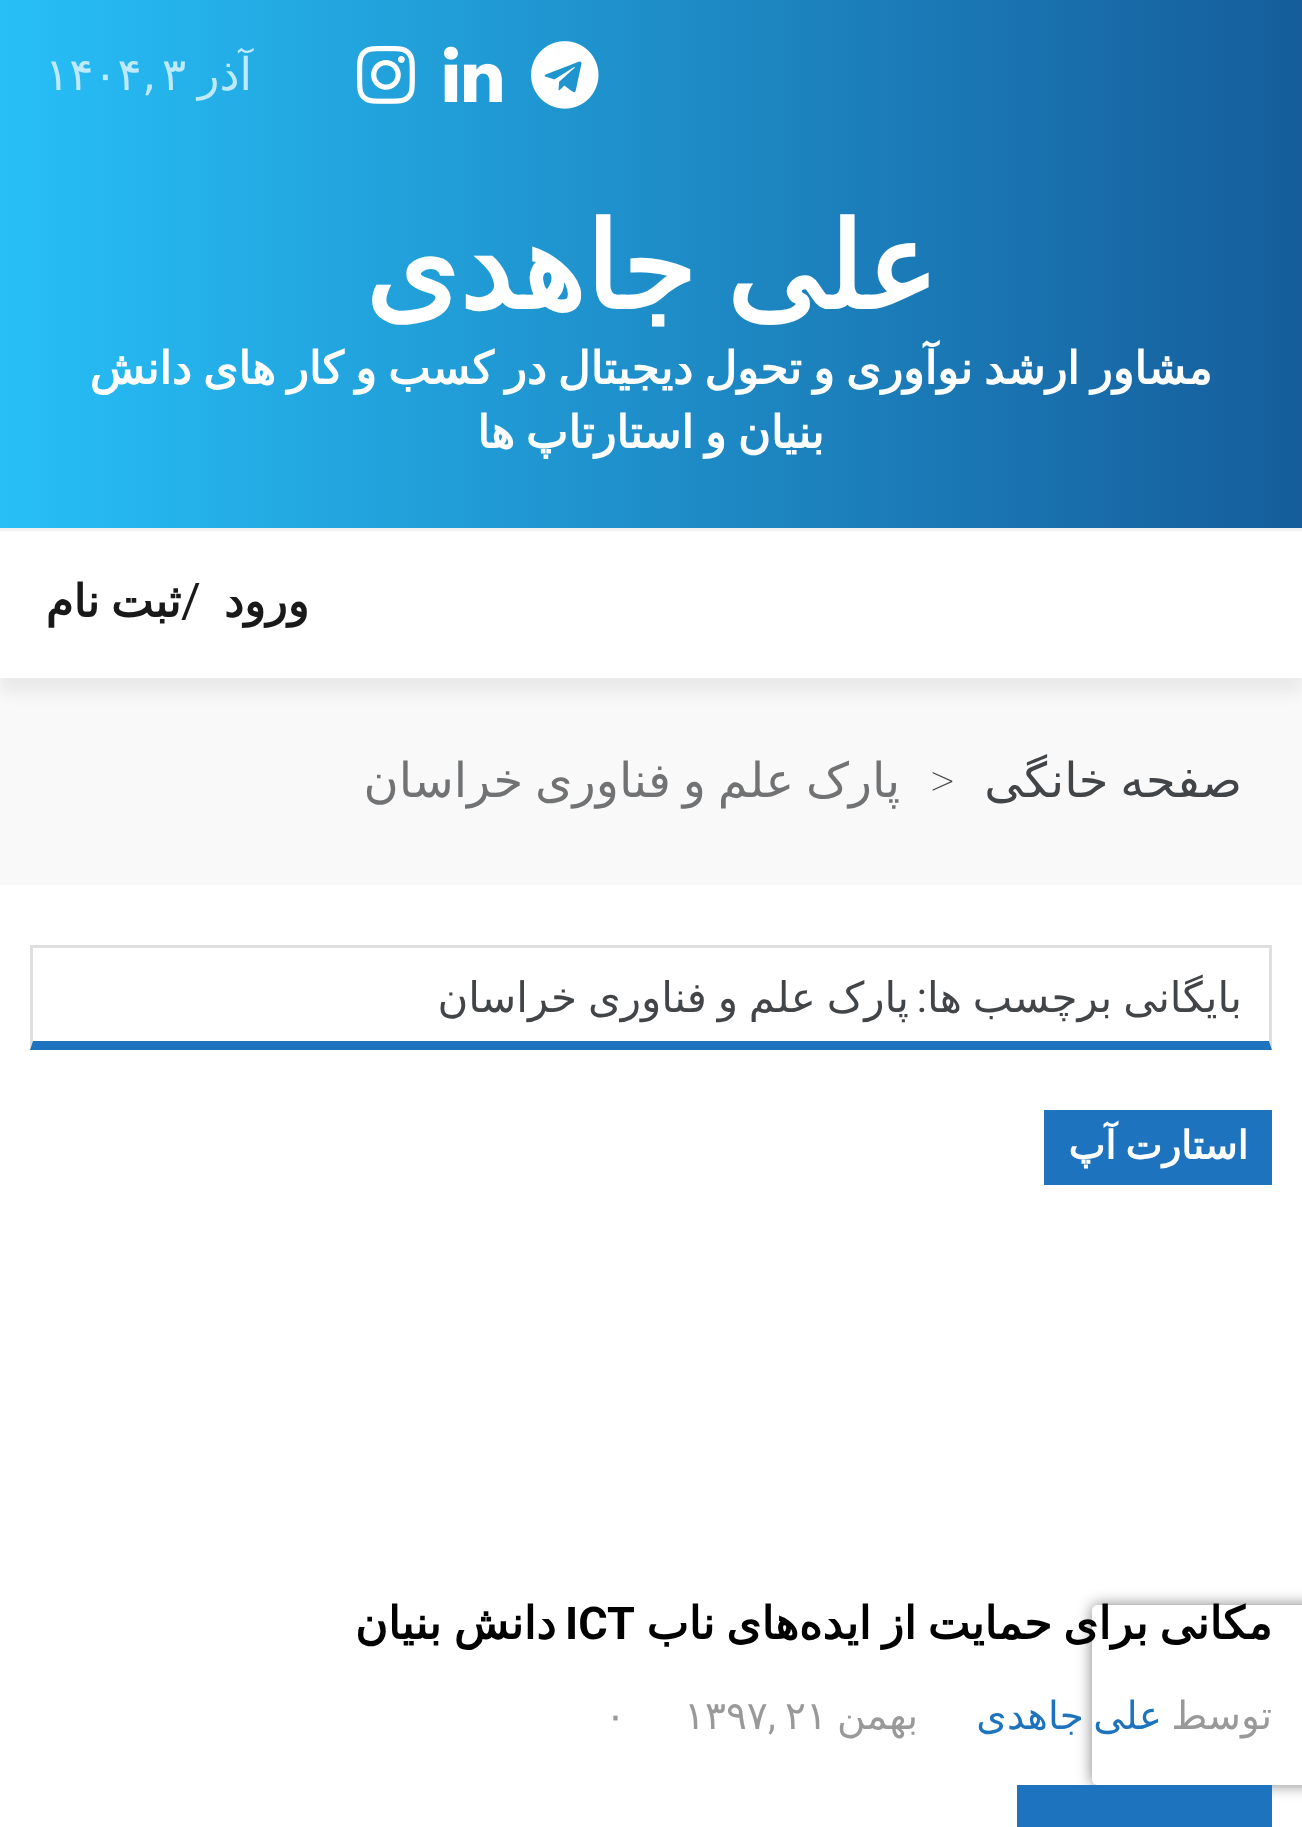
async function draw(canvas) {
	canvas.width = 1302;
	canvas.height = 1827;
	const c = canvas.getContext('2d');
	c.miterLimit = 4;
	c.fontKerning = 'normal';
	async function loadImage(src) {
		const img = new Image();
		img.src = src;
		await img.decode();
		return img;
	}
	let gradient;

	c.fillStyle = '#f9f9f9';
	c.fillRect(0, 0, 1302, 1827);
	c.fillStyle = '#96969626';
	c.filter = 'blur(7.5px)';
	c.beginPath();
	c.rect(0, 15, 1302, 678);
	c.fill();
	c.filter = 'none';
	gradient = c.createLinearGradient(1302, 75, 0, 75);
	gradient.addColorStop(0, '#155d9b');
	gradient.addColorStop(1, '#27bff7');
	c.fillStyle = gradient;
	c.fillRect(0, 0, 1302, 150);
	c.drawImage(await loadImage('img1.png'), 531, 41, 68, 68);
	c.drawImage(await loadImage('img2.png'), 444, 46, 58, 56);
	c.drawImage(await loadImage('img3.png'), 357, 45, 58, 59);
	c.direction = 'rtl';
	c.font = '45px DejaVu Sans';
	c.fillStyle = '#beeafb';
	c.fillText('آذر', 252, 90);
	c.direction = 'ltr';
	for (const [text, x, y] of [
		['۳', 162, 90],
		[',', 142, 90],
		['۱۴۰۴', 45, 90],
	]) {
		c.fillText(text, x, y);
	}
	gradient = c.createLinearGradient(1302, 339, 0, 339);
	gradient.addColorStop(0, '#155d9b');
	gradient.addColorStop(1, '#27bff7');
	c.fillStyle = gradient;
	c.fillRect(0, 150, 1302, 378);
	c.wordSpacing = '-8px';
	c.direction = 'rtl';
	c.font = 'bold 120px DejaVu Sans';
	c.fillStyle = '#fff';
	c.fillText('علی جاهدی', 937, 309);
	c.wordSpacing = '-3.1px';
	c.font = 'bold 45px DejaVu Sans';
	c.fillText('مشاور ارشد نوآوری و تحول دیجیتال در کسب و کار های دانش', 1212, 384);
	c.fillText('بنیان و استارتاپ ها', 824, 448);
	c.fillRect(0, 531, 1302, 147);
	c.fillStyle = '#f2f2f2';
	c.fillRect(0, 528, 1302, 3);
	c.wordSpacing = '0px';
	c.fillStyle = '#191919';
	c.fillText('ورود', 309, 617);
	c.direction = 'ltr';
	c.font = '48px Roboto';
	c.fillText('/', 181, 617);
	c.wordSpacing = '-3.1px';
	c.direction = 'rtl';
	c.font = 'bold 45px DejaVu Sans';
	c.fillText('ثبت نام', 181, 617);
	c.wordSpacing = '-3.5px';
	c.font = '48px DejaVu Sans';
	c.fillStyle = '#424548';
	c.fillText('صفحه خانگی', 1242, 797);
	c.wordSpacing = '0px';
	c.direction = 'ltr';
	c.font = '100 48px Roboto';
	c.fillText('>', 930, 797);
	c.wordSpacing = '-3.5px';
	c.direction = 'rtl';
	c.font = '48px DejaVu Sans';
	c.fillStyle = '#707274';
	c.fillText('پارک علم و فناوری خراسان', 900, 797);
	c.fillStyle = '#fff';
	c.fillRect(0, 885, 1302, 942);
	c.fillStyle = '#dfdfdf';
	c.beginPath();
	c.moveTo(30, 945);
	c.lineTo(1272, 945);
	c.lineTo(1269, 948);
	c.lineTo(33, 948);
	c.closePath();
	c.fill();
	c.fillStyle = '#80808040';
	c.beginPath();
	c.moveTo(1272, 945);
	c.lineTo(1272, 1050);
	c.lineTo(1269, 1041);
	c.lineTo(1269, 948);
	c.closePath();
	c.fill();
	c.fillStyle = '#1e73be';
	c.beginPath();
	c.moveTo(1272, 1050);
	c.lineTo(30, 1050);
	c.lineTo(33, 1041);
	c.lineTo(1269, 1041);
	c.closePath();
	c.fill();
	c.fillStyle = '#80808040';
	c.beginPath();
	c.moveTo(30, 1050);
	c.lineTo(30, 945);
	c.lineTo(33, 948);
	c.lineTo(33, 1041);
	c.closePath();
	c.fill();
	c.wordSpacing = '-2.5px';
	c.font = '42px DejaVu Sans';
	c.fillStyle = '#424548';
	c.fillText('بایگانی برچسب ها', 1242, 1012);
	c.wordSpacing = '0px';
	c.font = '42px Roboto';
	c.fillText(':', 927, 1012);
	c.wordSpacing = '-2.5px';
	c.font = '42px DejaVu Sans';
	c.fillText('پارک علم و فناوری خراسان', 909, 1012);
	c.fillStyle = '#1e73be';
	c.fillRect(1044, 1110, 228, 75);
	c.wordSpacing = '-3px';
	c.font = 'bold 39px DejaVu Sans';
	c.fillStyle = '#fff';
	c.fillText('استارت آپ', 1248, 1159);
	c.save();
	c.beginPath();
	c.moveTo(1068, 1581);
	c.lineTo(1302, 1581);
	c.lineTo(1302, 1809);
	c.lineTo(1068, 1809);
	c.closePath();
	c.moveTo(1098, 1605);
	c.lineTo(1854, 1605);
	c.bezierCurveTo(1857.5, 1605, 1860, 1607.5, 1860, 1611);
	c.lineTo(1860, 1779);
	c.bezierCurveTo(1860, 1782.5, 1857.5, 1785, 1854, 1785);
	c.lineTo(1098, 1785);
	c.bezierCurveTo(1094.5, 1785, 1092, 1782.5, 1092, 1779);
	c.lineTo(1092, 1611);
	c.bezierCurveTo(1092, 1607.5, 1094.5, 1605, 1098, 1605);
	c.closePath();
	c.clip('evenodd');
	c.fillStyle = '#808080';
	c.filter = 'blur(7.5px)';
	c.beginPath();
	c.roundRect(1092, 1605, 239, 180, 6);
	c.fill();
	c.filter = 'none';
	c.restore();
	c.wordSpacing = '-3.1px';
	c.font = 'bold 45px DejaVu Sans';
	c.fillStyle = '#000';
	c.fillText('مکانی برای حمایت از ایده‌های ناب', 1272, 1639);
	c.wordSpacing = '0px';
	c.direction = 'ltr';
	c.font = 'bold 45px Roboto';
	c.fillText('ICT', 565, 1639);
	c.wordSpacing = '-2px';
	c.direction = 'rtl';
	c.font = 'bold 45px DejaVu Sans';
	c.fillText('دانش بنیان', 556, 1639);
	c.wordSpacing = '0px';
	c.font = '39px DejaVu Sans';
	c.fillStyle = '#999';
	c.fillText('توسط', 1272, 1729);
	c.wordSpacing = '-3px';
	c.fillStyle = '#1e73be';
	c.fillText('علی جاهدی', 1162, 1729);
	c.wordSpacing = '0px';
	c.fillStyle = '#999';
	c.fillText('بهمن', 918, 1729);
	c.direction = 'ltr';
	c.fillText('۲۱', 785, 1729);
	c.font = '39px Roboto';
	c.fillText(',', 768, 1729);
	c.font = '39px DejaVu Sans';
	c.fillText('۱۳۹۷', 684, 1729);
	c.fillText('۰', 605, 1729);
	c.fillStyle = '#1e73be';
	c.fillRect(1017, 1785, 255, 42);
}

draw(document.querySelector('canvas'));
